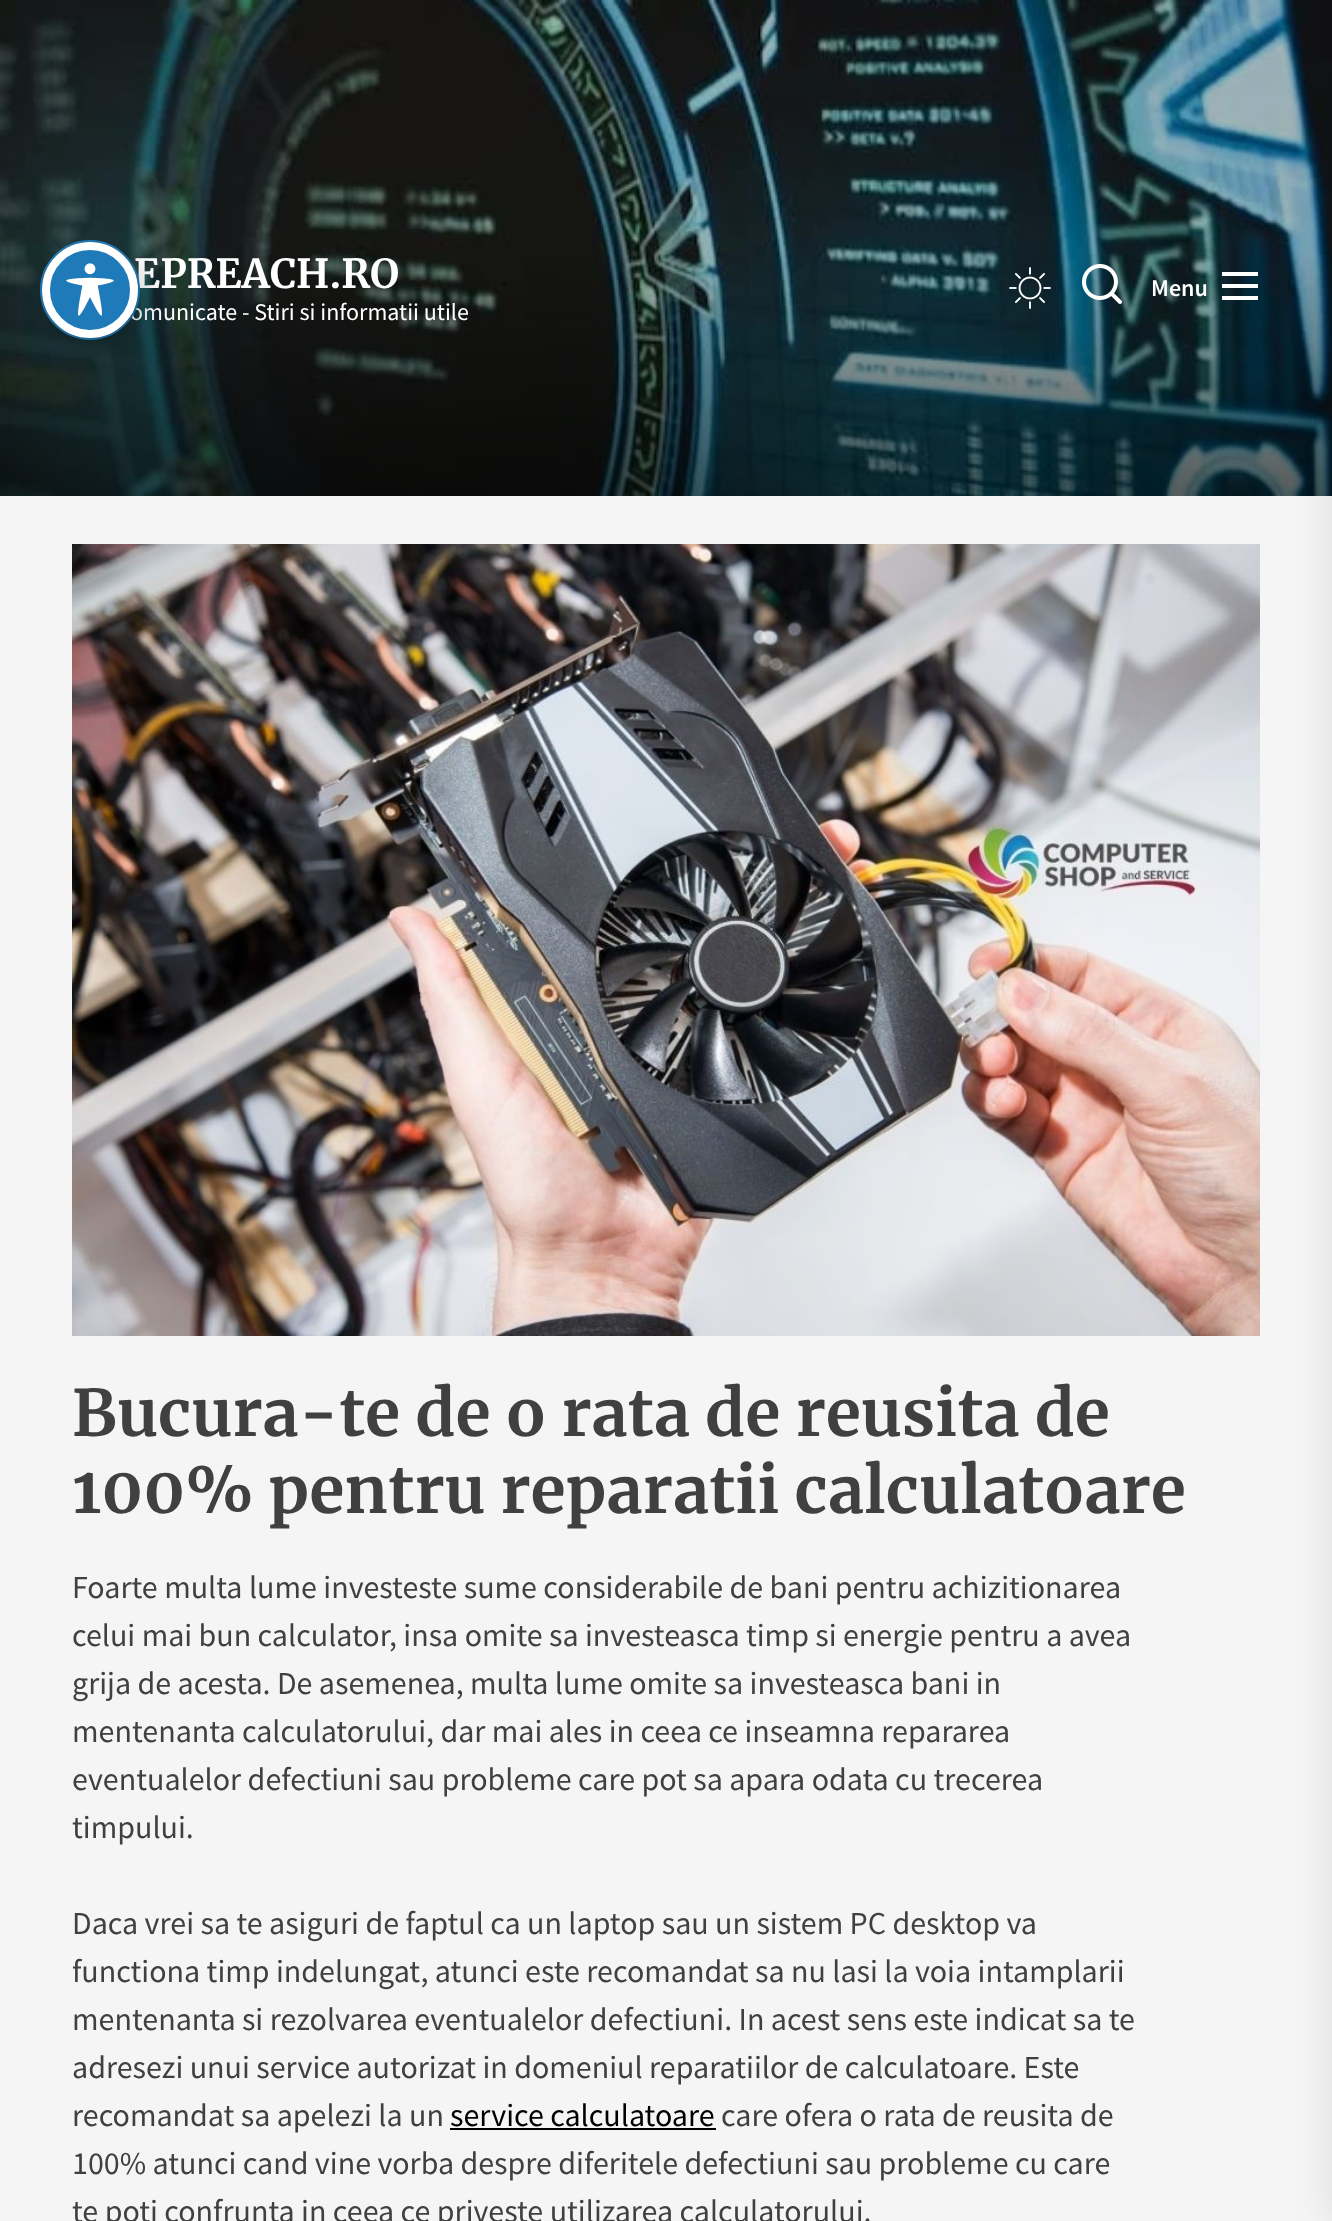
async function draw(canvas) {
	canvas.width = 1332;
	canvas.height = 2221;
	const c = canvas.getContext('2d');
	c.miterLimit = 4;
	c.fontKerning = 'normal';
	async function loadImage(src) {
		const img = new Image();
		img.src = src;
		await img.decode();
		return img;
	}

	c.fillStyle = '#f5f5f5';
	c.fillRect(0, 0, 1332, 2221);
	c.drawImage(await loadImage('img2.png'), 0, 0, 1332, 496);
	c.font = 'bold 40px Merriweather';
	c.fillStyle = '#fff';
	c.fillText('EPREACH.RO', 134, 288);
	c.font = '24px Source Sans Pro';
	c.fillText('omunicate - Stiri si informatii utile', 130, 320);
	c.beginPath();
	c.arc(90, 290, 49, 0, 2 * Math.PI);
	c.strokeStyle = '#1e7ab9';
	c.lineWidth = 2;
	c.stroke();
	c.fillStyle = '#00000033';
	c.filter = 'blur(16px)';
	c.beginPath();
	c.roundRect(54, 258, 96, 96, 48);
	c.fill();
	c.filter = 'none';
	c.fillStyle = '#1e7ab9';
	c.beginPath();
	c.arc(90, 290, 44, 0, 2 * Math.PI);
	c.fill();
	c.strokeStyle = '#fff';
	c.lineWidth = 8;
	c.stroke();
	c.drawImage(await loadImage('img1.png'), 66, 263, 48, 53);
	c.drawImage(await loadImage('img3.png'), 1009, 267, 42, 42);
	c.drawImage(await loadImage('img4.png'), 1082, 264, 40, 40);
	c.font = '600 24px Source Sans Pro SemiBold';
	c.fillStyle = '#fff';
	c.fillText('Menu', 1151, 296);
	c.beginPath();
	c.moveTo(1222, 272);
	c.lineTo(1222, 276);
	c.lineTo(1258, 276);
	c.lineTo(1258, 272);
	c.closePath();
	c.moveTo(1222, 288);
	c.lineTo(1258, 288);
	c.lineTo(1258, 284);
	c.lineTo(1222, 284);
	c.closePath();
	c.moveTo(1222, 300);
	c.lineTo(1258, 300);
	c.lineTo(1258, 296);
	c.lineTo(1222, 296);
	c.closePath();
	c.fill();
	c.fillStyle = '#0000001a';
	c.filter = 'blur(20px)';
	c.beginPath();
	c.rect(1332, 0, 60, 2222);
	c.fill();
	c.filter = 'none';
	c.drawImage(await loadImage('img5.png'), 72, 544, 1188, 792);
	c.font = 'bold 64px Merriweather';
	c.fillStyle = '#404040';
	c.fillText('Bucura-te de o rata de reusita de', 72, 1436);
	c.fillText('100% pentru reparatii calculatoare', 72, 1513);
	c.font = '32px Source Sans Pro';
	for (const [text, x, y] of [
		['Foarte multa lume investeste sume considerabile de bani pentru achizitionarea', 72, 1598],
		['celui mai bun calculator, insa omite sa investeasca timp si energie pentru a avea', 72, 1646],
		['grija de acesta. De asemenea, multa lume omite sa investeasca bani in', 72, 1694],
		['mentenanta calculatorului, dar mai ales in ceea ce inseamna repararea', 72, 1742],
		['eventualelor defectiuni sau probleme care pot sa apara odata cu trecerea', 72, 1790],
		['timpului.', 72, 1838],
		['Daca vrei sa te asiguri de faptul ca un laptop sau un sistem PC desktop va', 72, 1934],
		['functiona timp indelungat, atunci este recomandat sa nu lasi la voia intamplarii', 72, 1982],
		['mentenanta si rezolvarea eventualelor defectiuni. In acest sens este indicat sa te', 72, 2030],
		['adresezi unui service autorizat in domeniul reparatiilor de calculatoare. Este', 72, 2078],
		['recomandat sa apelezi la un', 72, 2126],
	]) {
		c.fillText(text, x, y);
	}
	c.fillStyle = '#000';
	c.fillText('service calculatoare', 450, 2126);
	c.fillRect(450, 2128, 266, 2);
	c.fillStyle = '#404040';
	for (const [text, x, y] of [
		['care ofera o rata de reusita de', 721, 2126],
		['100% atunci cand vine vorba despre diferitele defectiuni sau probleme cu care', 72, 2174],
		['te poti confrunta in ceea ce priveste utilizarea calculatorului.', 72, 2222],
	]) {
		c.fillText(text, x, y);
	}
}

draw(document.querySelector('canvas'));
